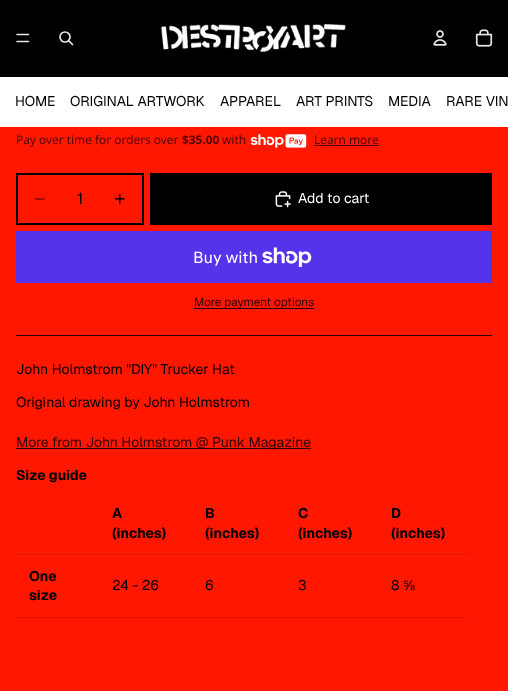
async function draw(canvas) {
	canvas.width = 508;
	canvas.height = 691;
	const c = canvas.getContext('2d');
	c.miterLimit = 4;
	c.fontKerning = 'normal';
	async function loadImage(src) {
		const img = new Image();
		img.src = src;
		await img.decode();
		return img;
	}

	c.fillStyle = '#ff1700';
	c.fillRect(0, 0, 508, 691);
	c.fillStyle = '#000';
	c.fillRect(0, 0, 508, 77);
	c.beginPath();
	c.moveTo(17, 34.5);
	c.lineTo(28.5, 34.5);
	c.moveTo(17, 41.5);
	c.lineTo(28.5, 41.5);
	c.strokeStyle = '#e6e6e6';
	c.lineWidth = 1.5;
	c.lineCap = 'round';
	c.stroke();
	c.beginPath();
	c.arc(65, 37, 5, 0, 2 * Math.PI);
	c.lineWidth = 1.7;
	c.stroke();
	c.beginPath();
	c.moveTo(69, 41);
	c.lineTo(72.5, 44.5);
	c.lineJoin = 'round';
	c.stroke();
	c.drawImage(await loadImage('img1.png'), 160, 24, 186, 29);
	c.drawImage(await loadImage('img2.png'), 433, 30, 14, 16);
	c.drawImage(await loadImage('img3.png'), 475, 29, 18, 18);
	c.fillStyle = '#fff';
	c.fillRect(0, 77, 508, 50);
	c.font = '14px Geist';
	c.fillStyle = '#000';
	for (const [text, x, y] of [
		['HOME', 15, 106],
		['ORIGINAL ARTWORK', 70, 106],
		['APPAREL', 220, 106],
		['ART PRINTS', 296, 106],
		['MEDIA', 388, 106],
		['RARE VIN', 446, 106],
	]) {
		c.fillText(text, x, y);
	}
	c.font = '11.9px Noto Sans';
	c.fillStyle = '#4d0700';
	c.fillText('Pay over time for orders over', 16, 144);
	c.font = 'bold 11.9px Noto Sans';
	c.fillText('$35.00', 182, 144);
	c.font = '11.9px Noto Sans';
	c.fillText('with', 222, 144);
	c.drawImage(await loadImage('img4.png'), 250, 134, 57, 14);
	c.fillText('Learn more', 314, 144);
	c.fillRect(314, 145, 65, 1);
	c.strokeStyle = '#000';
	c.lineWidth = 2;
	c.lineJoin = 'miter';
	c.strokeRect(17, 174, 126, 50);
	c.beginPath();
	c.moveTo(35.5, 199);
	c.lineTo(44, 199);
	c.strokeStyle = '#800c00';
	c.lineWidth = 1.5;
	c.stroke();
	c.font = '16px Geist';
	c.fillStyle = '#000';
	c.fillText('1', 77, 204);
	c.drawImage(await loadImage('img5.png'), 114, 193, 11, 11);
	c.fillRect(150, 173, 342, 52);
	c.drawImage(await loadImage('img6.png'), 275, 191, 16, 17);
	c.font = '14px Geist';
	c.fillStyle = '#fff';
	c.fillText('Add to cart', 298, 203);
	c.fillStyle = '#5433eb';
	c.fillRect(16, 231, 476, 52);
	c.font = '16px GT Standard';
	c.fillStyle = '#fff';
	c.fillText('Buy with', 193, 263);
	c.drawImage(await loadImage('img7.png'), 262, 247, 50, 20);
	c.font = '11.75px Geist';
	c.fillStyle = '#2b0101';
	c.fillText('More payment options', 194, 306);
	c.fillRect(194, 308, 120, 1);
	c.fillRect(16, 335, 476, 1);
	c.font = '14px Geist';
	c.fillStyle = '#000';
	c.fillText('John Holmstrom "DIY" Trucker Hat', 16, 374);
	c.fillText('Original drawing by John Holmstrom', 16, 407);
	c.fillStyle = '#2b0101';
	c.fillRect(16, 448, 295, 1);
	c.fillText('More from John Holmstrom @ Punk Magazine', 16, 447);
	c.font = 'bold 14px Geist';
	c.fillStyle = '#000';
	c.fillText('Size guide', 16, 480);
	c.fillStyle = '#e61500';
	c.fillRect(16, 554, 455, 1);
	c.fillStyle = '#000';
	for (const [text, x, y] of [
		['A', 112, 518],
		['(inches)', 112, 538],
		['B', 205, 518],
		['(inches)', 205, 538],
		['C', 298, 518],
		['(inches)', 298, 538],
		['D', 391, 518],
		['(inches)', 391, 538],
	]) {
		c.fillText(text, x, y);
	}
	c.fillStyle = '#e61500';
	c.fillRect(16, 617, 455, 1);
	c.fillStyle = '#000';
	c.fillText('One', 29, 581);
	c.fillText('size', 29, 600);
	c.font = '14px Geist';
	for (const [text, x, y] of [
		['24 - 26', 112, 590],
		['6', 205, 590],
		['3', 298, 590],
		['8', 391, 590],
	]) {
		c.fillText(text, x, y);
	}
	c.font = '14px Liberation Sans';
	c.fillText('⅝', 403, 590);
}

draw(document.querySelector('canvas'));
